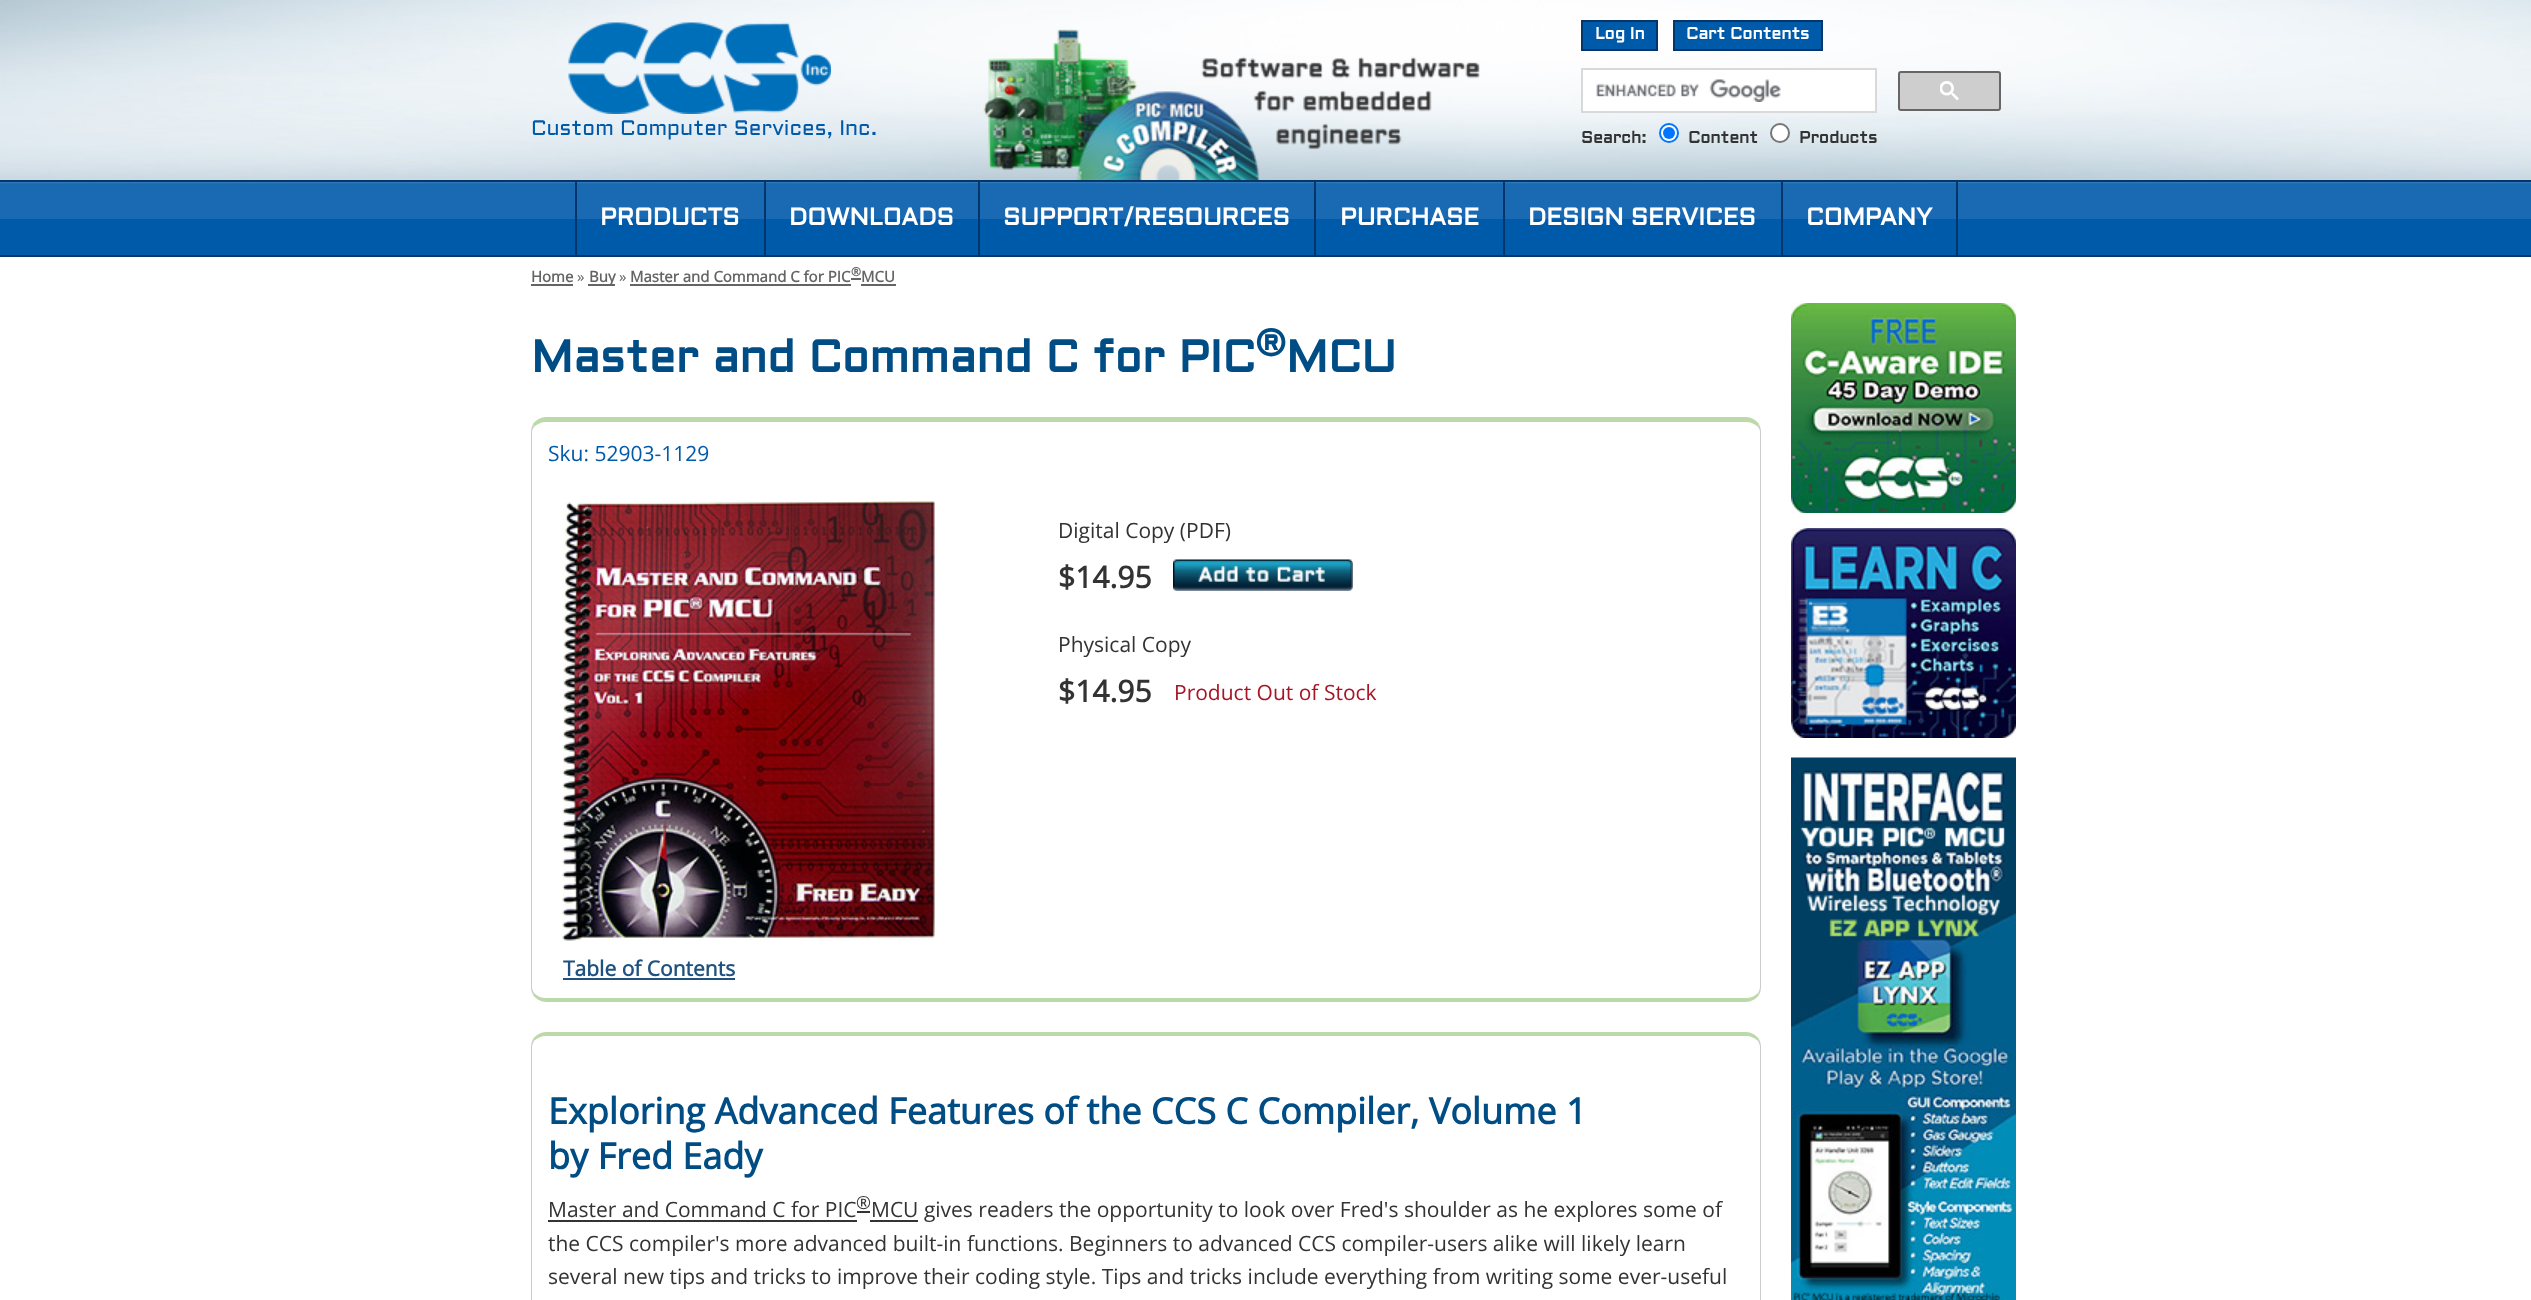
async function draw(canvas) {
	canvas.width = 2531;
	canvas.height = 1300;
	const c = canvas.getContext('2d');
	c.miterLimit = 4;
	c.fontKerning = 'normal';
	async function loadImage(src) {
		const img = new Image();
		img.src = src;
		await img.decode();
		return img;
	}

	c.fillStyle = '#fff';
	c.fillRect(0, 0, 2531, 1300);
	c.drawImage(await loadImage('img1.png'), 0, 0, 2531, 180);
	c.drawImage(await loadImage('img2.png'), 983, 29, 497, 151);
	c.drawImage(await loadImage('img3.png'), 568, 22, 263, 92);
	c.font = '21px Aldrich';
	c.fillStyle = '#005aaa';
	c.fillText('Custom Computer Services, Inc.', 531, 135);
	c.beginPath();
	c.rect(1582, 21, 75, 29);
	c.fill();
	c.strokeStyle = '#04366c';
	c.lineWidth = 2;
	c.stroke();
	c.font = 'bold 16.5px Aldrich';
	c.fillStyle = '#fff';
	c.fillText('Log In', 1595, 39);
	c.fillStyle = '#005aaa';
	c.beginPath();
	c.rect(1674, 21, 148, 29);
	c.fill();
	c.stroke();
	c.fillStyle = '#fff';
	c.fillText('Cart Contents', 1686, 39);
	c.beginPath();
	c.rect(1582, 69, 294, 43);
	c.fill();
	c.strokeStyle = '#d9d9d9';
	c.stroke();
	c.drawImage(await loadImage('img4.png'), 1596, 79, 185, 23);
	c.fillStyle = '#cecece';
	c.beginPath();
	c.roundRect(1899, 72, 101, 38, 2);
	c.fill();
	c.strokeStyle = '#666';
	c.stroke();
	c.drawImage(await loadImage('img5.png'), 1940, 81, 19, 20);
	c.fillStyle = '#333';
	c.fillText('Search:', 1581, 143);
	c.fillStyle = '#fff';
	c.beginPath();
	c.arc(1669, 133, 9, 0, 2 * Math.PI);
	c.fill();
	c.strokeStyle = '#0075ff';
	c.stroke();
	c.fillStyle = '#0075ff';
	c.beginPath();
	c.arc(1669, 133, 6, 0, 2 * Math.PI);
	c.fill();
	c.fillStyle = '#333';
	c.fillText('Content', 1688, 143);
	c.fillStyle = '#fff';
	c.beginPath();
	c.arc(1780, 133, 9, 0, 2 * Math.PI);
	c.fill();
	c.strokeStyle = '#767676';
	c.stroke();
	c.fillStyle = '#333';
	c.fillText('Products', 1799, 143);
	c.fillStyle = '#005aaa';
	c.fillRect(0, 219, 2531, 36);
	c.drawImage(await loadImage('img6.png'), 0, 182, 2531, 37);
	for (const [x, y, w, h, color] of [
		[0, 180, 2531, 2, '#04366c'],
		[0, 255, 2531, 2, '#04366c'],
		[764, 182, 2, 73, '#04366c'],
		[575, 182, 2, 73, '#04366c'],
	]) {
		c.fillStyle = color;
		c.fillRect(x, y, w, h);
	}
	c.font = 'bold 24px Aldrich';
	c.fillStyle = '#fff';
	c.fillText('PRODUCTS', 600, 225);
	c.fillStyle = '#04366c';
	c.fillRect(978, 182, 2, 73);
	c.fillStyle = '#fff';
	c.fillText('DOWNLOADS', 789, 225);
	c.fillStyle = '#04366c';
	c.fillRect(1314, 182, 2, 73);
	c.fillStyle = '#fff';
	c.fillText('SUPPORT/RESOURCES', 1003, 225);
	c.fillStyle = '#04366c';
	c.fillRect(1503, 182, 2, 73);
	c.fillStyle = '#fff';
	c.fillText('PURCHASE', 1340, 225);
	c.fillStyle = '#04366c';
	c.fillRect(1781, 182, 2, 73);
	c.fillStyle = '#fff';
	c.fillText('DESIGN SERVICES', 1528, 225);
	c.fillStyle = '#04366c';
	c.fillRect(1956, 182, 2, 73);
	c.fillStyle = '#fff';
	c.fillText('COMPANY', 1806, 225);
	c.font = 'bold 15px Open Sans';
	c.fillStyle = '#646464';
	c.fillText('Home', 531, 282);
	c.fillRect(531, 284, 42, 2);
	c.font = '15px Open Sans';
	c.fillText('»', 577, 282);
	c.fillRect(588, 284, 27, 2);
	c.font = 'bold 15px Open Sans';
	c.fillText('Buy', 589, 282);
	c.font = '15px Open Sans';
	c.fillText('»', 619, 282);
	c.font = 'bold 15px Open Sans';
	c.fillText('Master and Command C for PIC', 630, 282);
	c.fillRect(630, 284, 221, 2);
	c.fillRect(851, 278, 10, 2);
	c.font = 'bold 12px Open Sans';
	c.fillText('®', 851, 276);
	c.font = 'bold 15px Open Sans';
	c.fillText('MCU', 861, 282);
	c.fillRect(861, 284, 35, 2);
	c.font = 'bold 45px Aldrich';
	c.fillStyle = '#004d85';
	c.fillText('Master and Command C for PIC', 531, 372);
	c.font = 'bold 38px Aldrich';
	c.fillText('®', 1255, 356);
	c.font = 'bold 45px Aldrich';
	c.fillText('MCU', 1286, 372);
	c.fillStyle = '#bcd9a9';
	c.beginPath();
	c.moveTo(546, 417);
	c.bezierCurveTo(541, 417, 536, 420, 533, 424);
	c.lineTo(534, 427);
	c.bezierCurveTo(537, 424, 541, 422, 546, 422);
	c.lineTo(1746, 422);
	c.bezierCurveTo(1751, 422, 1755, 424, 1758, 427);
	c.lineTo(1759, 424);
	c.bezierCurveTo(1756, 420, 1751, 417, 1746, 417);
	c.closePath();
	c.fill();
	c.fillStyle = '#ccc';
	c.beginPath();
	c.moveTo(1761, 987);
	c.lineTo(1761, 432);
	c.bezierCurveTo(1761, 429, 1760, 426, 1759, 424);
	c.lineTo(1758, 427);
	c.bezierCurveTo(1759, 428, 1760, 430, 1760, 432);
	c.lineTo(1760, 987);
	c.bezierCurveTo(1760, 989, 1759, 991, 1758, 993);
	c.lineTo(1759, 995);
	c.bezierCurveTo(1760, 993, 1761, 990, 1761, 987);
	c.closePath();
	c.fill();
	c.fillStyle = '#bcd9a9';
	c.beginPath();
	c.moveTo(546, 1002);
	c.lineTo(1746, 1002);
	c.bezierCurveTo(1751, 1002, 1756, 999, 1759, 995);
	c.lineTo(1758, 993);
	c.bezierCurveTo(1755, 996, 1751, 998, 1746, 998);
	c.lineTo(546, 998);
	c.bezierCurveTo(541, 998, 537, 996, 534, 993);
	c.lineTo(533, 995);
	c.bezierCurveTo(536, 999, 541, 1002, 546, 1002);
	c.closePath();
	c.fill();
	c.fillStyle = '#ccc';
	c.beginPath();
	c.moveTo(531, 432);
	c.lineTo(531, 987);
	c.bezierCurveTo(531, 990, 532, 993, 533, 995);
	c.lineTo(534, 993);
	c.bezierCurveTo(533, 991, 532, 989, 532, 987);
	c.lineTo(532, 432);
	c.bezierCurveTo(532, 430, 533, 428, 534, 427);
	c.lineTo(533, 424);
	c.bezierCurveTo(532, 426, 531, 429, 531, 432);
	c.closePath();
	c.fill();
	c.font = '21px Open Sans';
	c.fillStyle = '#005aaa';
	c.fillText('Sku: 52903-1129', 548, 461);
	c.fillStyle = '#333';
	c.fillText('Digital Copy (PDF)', 1058, 538);
	c.font = 'bold 30px Open Sans';
	c.fillText('$14.95', 1058, 588);
	c.drawImage(await loadImage('img7.png'), 1173, 559, 180, 32);
	c.font = '21px Open Sans';
	c.fillText('Physical Copy', 1058, 652);
	c.font = 'bold 30px Open Sans';
	c.fillText('$14.95', 1058, 702);
	c.font = '21px Open Sans';
	c.fillStyle = '#a71526';
	c.fillText('Product Out of Stock', 1174, 700);
	c.drawImage(await loadImage('img8.png'), 562, 501, 373, 440);
	c.font = 'bold 21px Open Sans';
	c.fillStyle = '#1f527f';
	c.fillText('Table of Contents', 563, 976);
	c.fillRect(563, 978, 172, 2);
	c.fillStyle = '#bcd9a9';
	c.beginPath();
	c.moveTo(546, 1032);
	c.bezierCurveTo(541, 1032, 536, 1035, 533, 1039);
	c.lineTo(534, 1041);
	c.bezierCurveTo(537, 1038, 541, 1036, 546, 1036);
	c.lineTo(1746, 1036);
	c.bezierCurveTo(1751, 1036, 1755, 1038, 1758, 1041);
	c.lineTo(1759, 1039);
	c.bezierCurveTo(1756, 1035, 1751, 1032, 1746, 1032);
	c.closePath();
	c.fill();
	c.fillStyle = '#ccc';
	c.beginPath();
	c.moveTo(1761, 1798);
	c.lineTo(1761, 1047);
	c.bezierCurveTo(1761, 1044, 1760, 1041, 1759, 1039);
	c.lineTo(1758, 1041);
	c.bezierCurveTo(1759, 1043, 1760, 1045, 1760, 1047);
	c.lineTo(1760, 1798);
	c.bezierCurveTo(1760, 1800, 1759, 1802, 1758, 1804);
	c.lineTo(1759, 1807);
	c.bezierCurveTo(1760, 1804, 1761, 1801, 1761, 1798);
	c.closePath();
	c.fill();
	c.beginPath();
	c.moveTo(531, 1047);
	c.lineTo(531, 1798);
	c.bezierCurveTo(531, 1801, 532, 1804, 533, 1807);
	c.lineTo(534, 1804);
	c.bezierCurveTo(533, 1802, 532, 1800, 532, 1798);
	c.lineTo(532, 1047);
	c.bezierCurveTo(532, 1045, 533, 1043, 534, 1041);
	c.lineTo(533, 1039);
	c.bezierCurveTo(532, 1041, 531, 1044, 531, 1047);
	c.closePath();
	c.fill();
	c.font = 'bold 36px Open Sans';
	c.fillStyle = '#004d85';
	c.fillText('Exploring Advanced Features of the CCS C Compiler, Volume 1', 548, 1124);
	c.fillText('by Fred Eady', 548, 1169);
	c.font = '21px Open Sans';
	c.fillStyle = '#333';
	c.fillText('Master and Command C for PIC', 548, 1217);
	c.fillRect(548, 1220, 309, 2);
	c.font = '18px Open Sans';
	c.fillText('®', 856, 1209);
	c.fillRect(870, 1220, 48, 2);
	c.font = '21px Open Sans';
	c.fillText('MCU gives readers the opportunity to look over Fred\'s shoulder as he explores some of', 871, 1217);
	c.fillRect(857, 1211, 13, 2);
	c.fillText('the CCS compiler\'s more advanced built-in functions. Beginners to advanced CCS compiler-users alike will likely learn', 548, 1251);
	c.fillText('several new tips and tricks to improve their coding style. Tips and tricks include everything from writing some ever-useful', 548, 1284);
	c.drawImage(await loadImage('img9.png'), 1791, 303, 225, 210);
	c.drawImage(await loadImage('img10.png'), 1791, 528, 225, 210);
	c.drawImage(await loadImage('img11.png'), 1791, 757, 225, 543);
}

draw(document.querySelector('canvas'));
